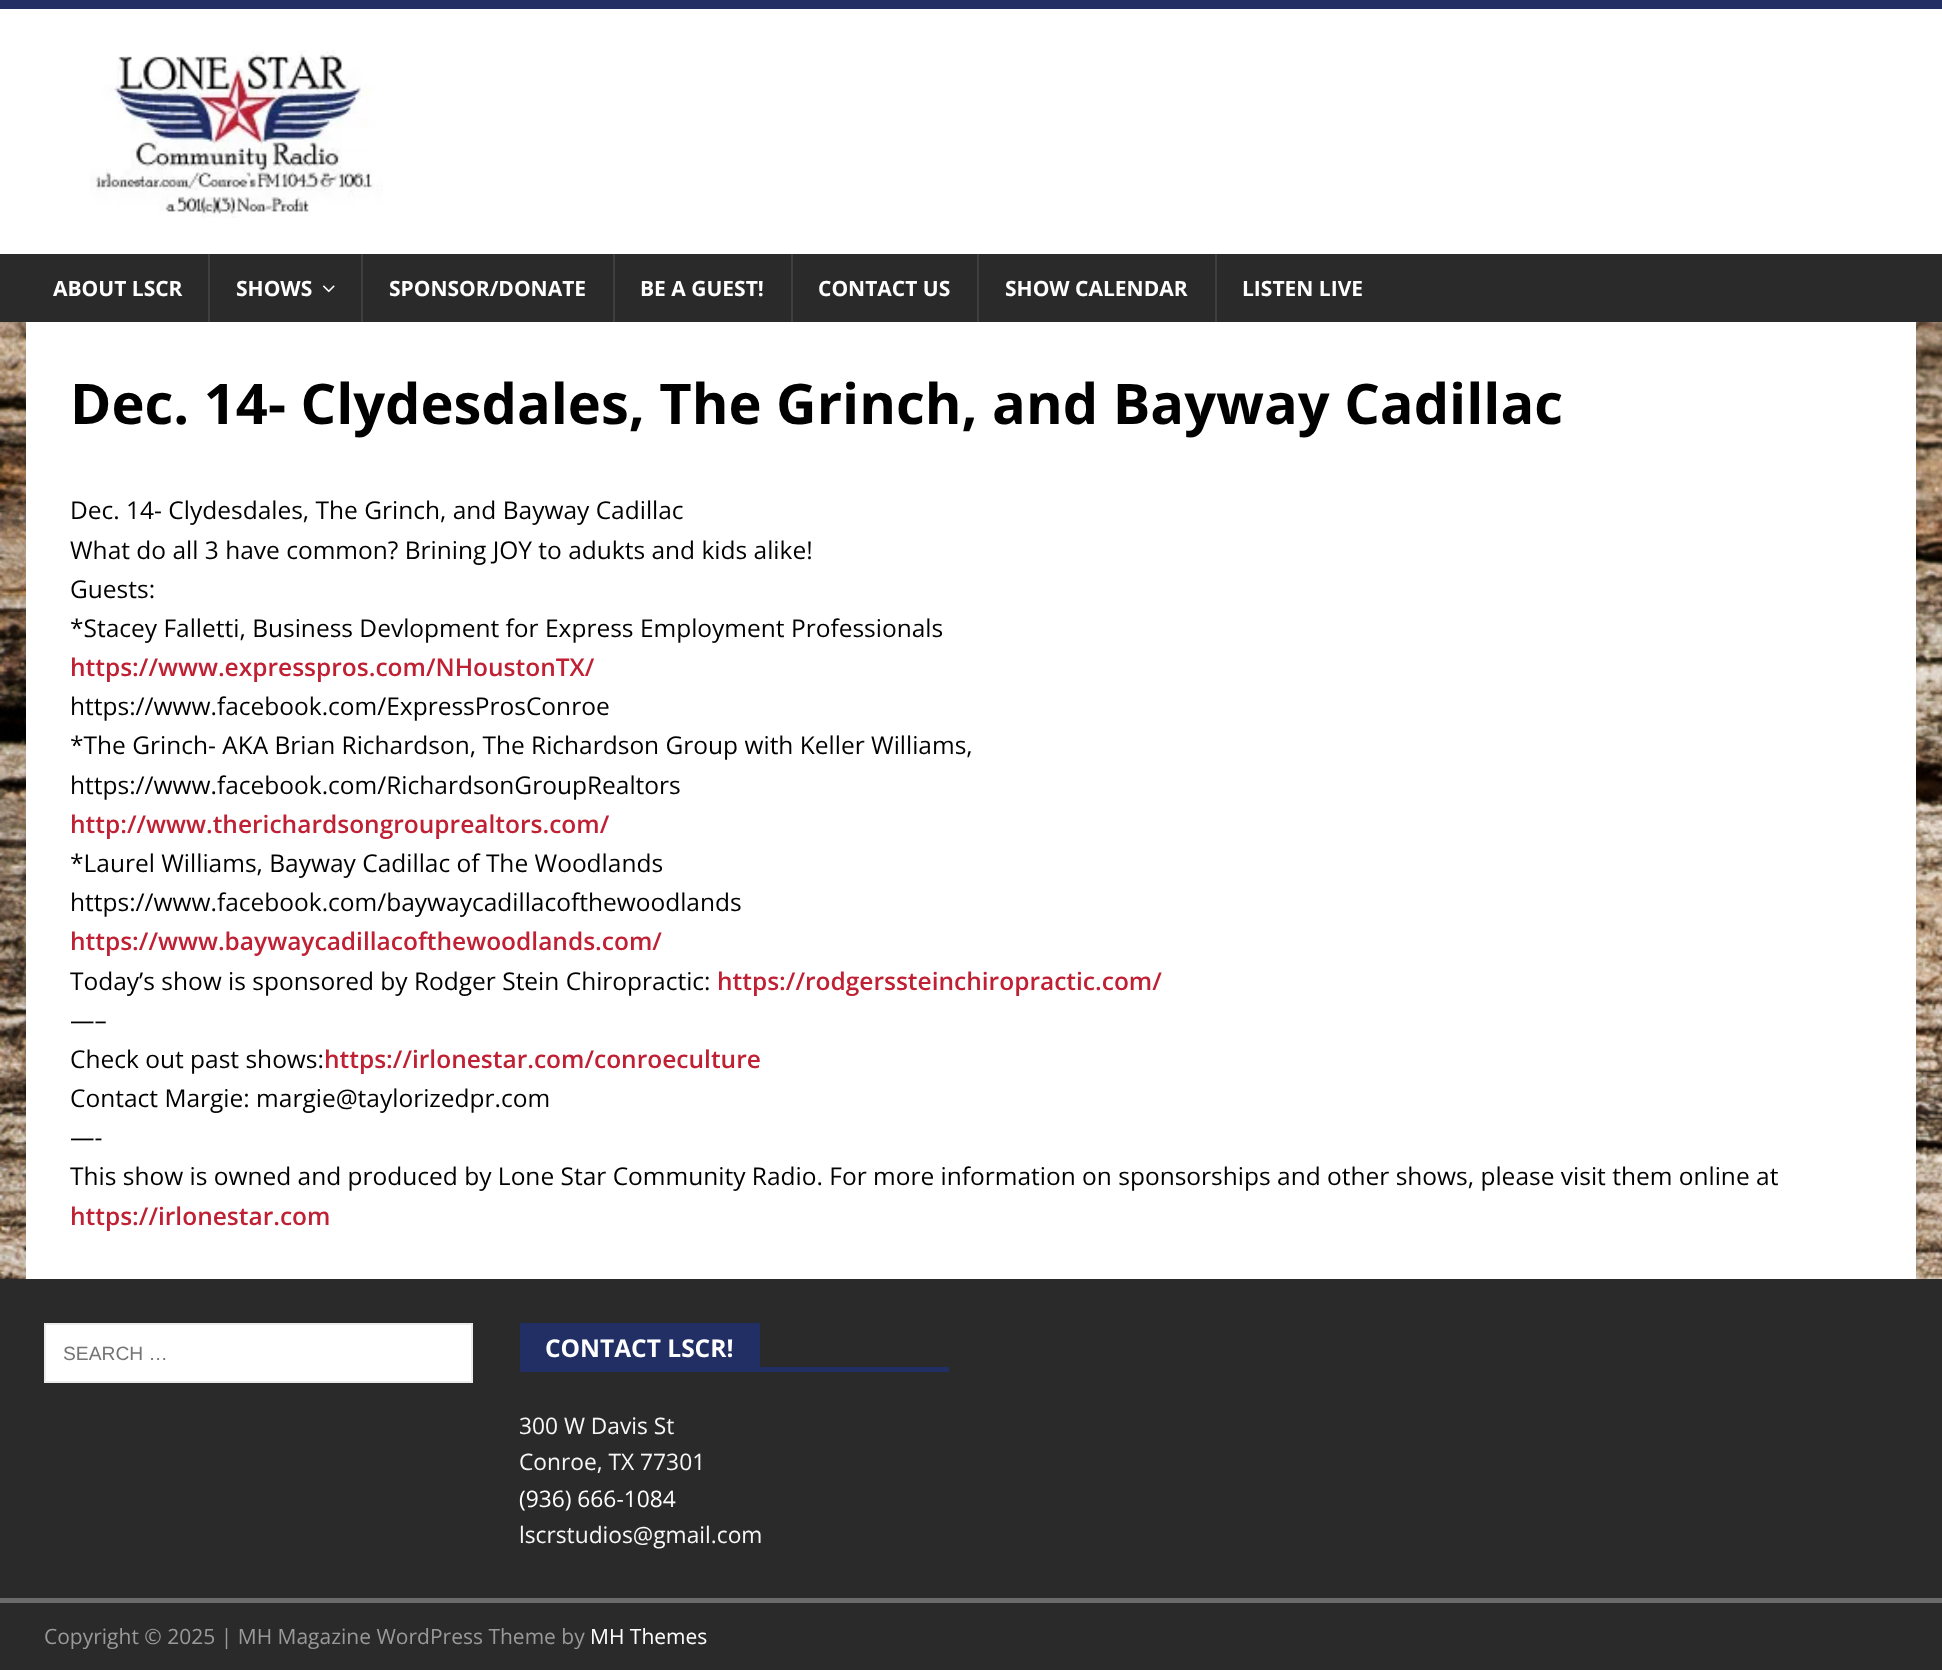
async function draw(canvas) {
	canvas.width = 1942;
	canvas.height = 1670;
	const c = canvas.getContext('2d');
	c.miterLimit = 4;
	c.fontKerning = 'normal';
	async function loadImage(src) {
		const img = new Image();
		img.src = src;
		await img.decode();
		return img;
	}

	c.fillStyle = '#fff';
	c.fillRect(0, 0, 1942, 1670);
	c.drawImage(await loadImage('img1.png'), 0, 322, 1942, 957);
	c.fillStyle = '#212f64';
	c.fillRect(0, 0, 1942, 9);
	c.drawImage(await loadImage('img2.png'), 90, 50, 293, 168);
	c.fillStyle = '#2a2a2a';
	c.fillRect(0, 254, 1942, 68);
	c.font = 'bold 21px Open Sans';
	c.fillStyle = '#fff';
	c.fillText('ABOUT LSCR', 53, 296);
	c.fillStyle = '#3f3f3f';
	c.fillRect(208, 254, 2, 68);
	c.fillStyle = '#fff';
	c.fillText('SHOWS', 236, 296);
	c.drawImage(await loadImage('img3.png'), 322, 285, 13, 8);
	c.fillStyle = '#3f3f3f';
	c.fillRect(361, 254, 2, 68);
	c.fillStyle = '#fff';
	c.fillText('SPONSOR/DONATE', 389, 296);
	c.fillStyle = '#3f3f3f';
	c.fillRect(613, 254, 2, 68);
	c.fillStyle = '#fff';
	c.fillText('BE A GUEST!', 640, 296);
	c.fillStyle = '#3f3f3f';
	c.fillRect(791, 254, 2, 68);
	c.fillStyle = '#fff';
	c.fillText('CONTACT US', 818, 296);
	c.fillStyle = '#3f3f3f';
	c.fillRect(977, 254, 2, 68);
	c.fillStyle = '#fff';
	c.fillText('SHOW CALENDAR', 1005, 296);
	c.fillStyle = '#3f3f3f';
	c.fillRect(1215, 254, 2, 68);
	c.fillStyle = '#fff';
	c.fillText('LISTEN LIVE', 1242, 296);
	c.fillRect(26, 322, 1890, 957);
	c.font = 'bold 56px Open Sans';
	c.fillStyle = '#000';
	c.fillText('Dec. 14- Clydesdales, The Grinch, and Bayway Cadillac', 70, 424);
	c.font = '24.5px Open Sans';
	for (const [text, x, y] of [
		['Dec. 14- Clydesdales, The Grinch, and Bayway Cadillac', 70, 519],
		['What do all 3 have common? Brining JOY to adukts and kids alike!', 70, 559],
		['Guests:', 70, 598],
		['*Stacey Falletti, Business Devlopment for Express Employment Professionals', 70, 637],
	]) {
		c.fillText(text, x, y);
	}
	c.font = '600 24.5px Open Sans';
	c.fillStyle = '#c02033';
	c.fillText('https://www.expresspros.com/NHoustonTX/', 70, 676);
	c.font = '24.5px Open Sans';
	c.fillStyle = '#000';
	for (const [text, x, y] of [
		['https://www.facebook.com/ExpressProsConroe', 70, 715],
		['*The Grinch- AKA Brian Richardson, The Richardson Group with Keller Williams,', 70, 754],
		['https://www.facebook.com/RichardsonGroupRealtors', 70, 794],
	]) {
		c.fillText(text, x, y);
	}
	c.font = '600 24.5px Open Sans';
	c.fillStyle = '#c02033';
	c.fillText('http://www.therichardsongrouprealtors.com/', 70, 833);
	c.font = '24.5px Open Sans';
	c.fillStyle = '#000';
	c.fillText('*Laurel Williams, Bayway Cadillac of The Woodlands', 70, 872);
	c.fillText('https://www.facebook.com/baywaycadillacofthewoodlands', 70, 911);
	c.font = '600 24.5px Open Sans';
	c.fillStyle = '#c02033';
	c.fillText('https://www.baywaycadillacofthewoodlands.com/', 70, 950);
	c.font = '24.5px Open Sans';
	c.fillStyle = '#000';
	c.fillText('Today’s show is sponsored by Rodger Stein Chiropractic:', 70, 990);
	c.font = '600 24.5px Open Sans';
	c.fillStyle = '#c02033';
	c.fillText('https://rodgerssteinchiropractic.com/', 717, 990);
	c.font = '24.5px Open Sans';
	c.fillStyle = '#000';
	c.fillText('—–', 70, 1029);
	c.fillText('Check out past shows:', 70, 1068);
	c.font = '600 24.5px Open Sans';
	c.fillStyle = '#c02033';
	c.fillText('https://irlonestar.com/conroeculture', 324, 1068);
	c.font = '24.5px Open Sans';
	c.fillStyle = '#000';
	for (const [text, x, y] of [
		['Contact Margie: margie@taylorizedpr.com', 70, 1107],
		['—-', 70, 1146],
		['This show is owned and produced by Lone Star Community Radio. For more information on sponsorships and other shows, please visit them online at', 70, 1185],
	]) {
		c.fillText(text, x, y);
	}
	c.font = '600 24.5px Open Sans';
	c.fillStyle = '#c02033';
	c.fillText('https://irlonestar.com', 70, 1225);
	c.fillStyle = '#2a2a2a';
	c.fillRect(0, 1279, 1942, 319);
	c.fillStyle = '#fff';
	c.beginPath();
	c.rect(45, 1324, 427, 58);
	c.fill();
	c.strokeStyle = '#ebebeb';
	c.lineWidth = 2;
	c.stroke();
	c.font = '19.25px Liberation Sans';
	c.fillStyle = '#757575';
	c.fillText('SEARCH …', 63, 1360);
	c.fillStyle = '#212f64';
	c.fillRect(520, 1367, 429, 5);
	c.fillRect(520, 1323, 240, 44);
	c.font = 'bold 24.5px Open Sans';
	c.fillStyle = '#fff';
	c.fillText('CONTACT LSCR!', 545, 1357);
	c.font = '22.75px Open Sans';
	c.fillStyle = '#f7f7f7';
	c.fillText('300 W Davis St', 519, 1434);
	c.fillText('Conroe, TX 77301', 519, 1470);
	c.fillStyle = '#fff';
	c.fillText('(936) 666-1084', 519, 1507);
	c.fillStyle = '#f7f7f7';
	c.fillText('lscrstudios@gmail.com', 519, 1543);
	c.fillStyle = '#2a2a2a';
	c.fillRect(0, 1603, 1942, 67);
	c.fillStyle = '#6a6a6a';
	c.fillRect(0, 1598, 1942, 5);
	c.font = '21px Open Sans';
	c.fillStyle = '#999';
	c.fillText('Copyright © 2025 | MH Magazine WordPress Theme by', 44, 1644);
	c.fillStyle = '#fff';
	c.fillText('MH Themes', 590, 1644);
}

draw(document.querySelector('canvas'));
